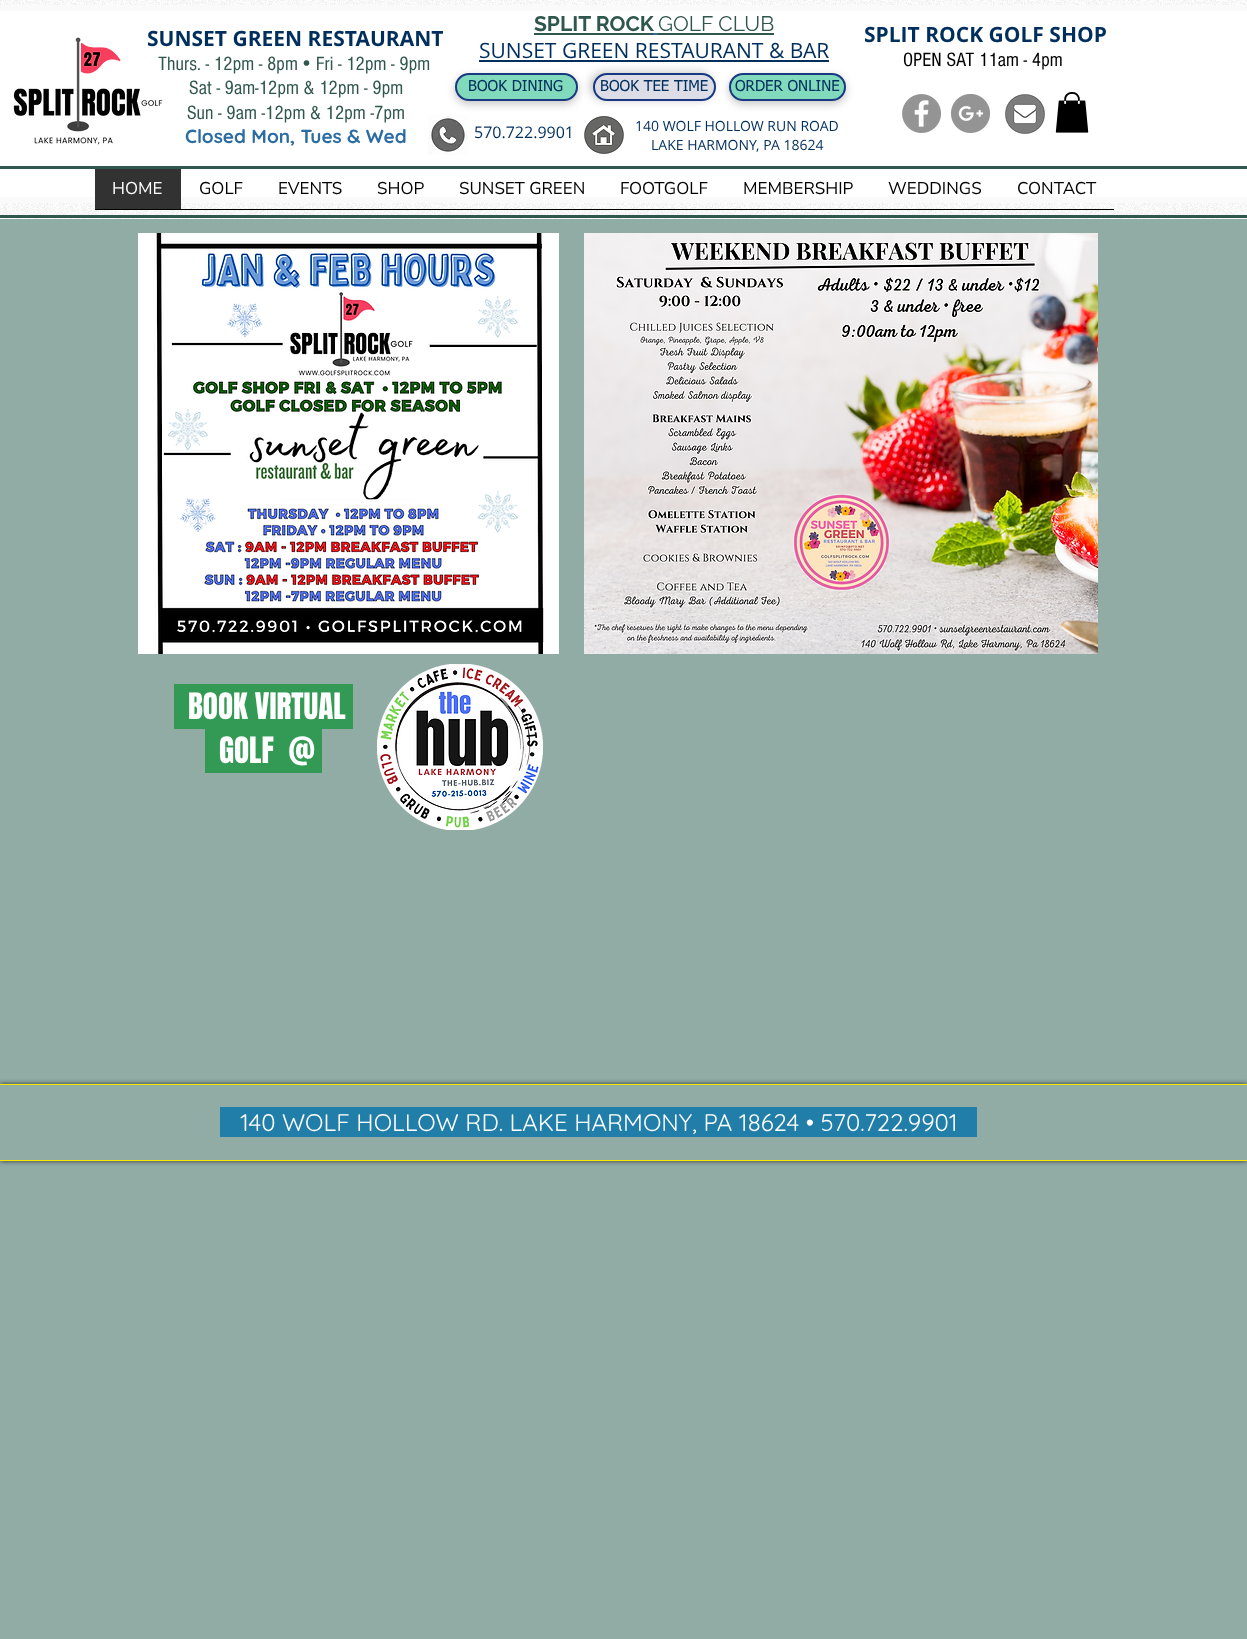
async function draw(canvas) {
	canvas.width = 1247;
	canvas.height = 1639;
	const c = canvas.getContext('2d');
	c.miterLimit = 4;
	c.fontKerning = 'normal';
	async function loadImage(src) {
		const img = new Image();
		img.src = src;
		await img.decode();
		return img;
	}

	c.fillStyle = '#91aba5';
	c.fillRect(0, 0, 1247, 1639);
	c.fillStyle = '#fff';
	c.fillRect(0, 0, 1247, 219);
	c.drawImage(await loadImage('img1.png'), 0, 0, 1247, 219);
	c.beginPath();
	c.rect(-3, 8, 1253, 192);
	c.fill();
	c.strokeStyle = '#fafafa';
	c.lineWidth = 6;
	c.stroke();
	c.drawImage(await loadImage('img2.png'), 13, 37, 150, 108);
	c.font = 'bold 21px Open Sans';
	c.fillStyle = '#002e5d';
	c.fillText('SUNSET GREEN RESTAURANT', 147, 46);
	c.font = '20px "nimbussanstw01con"';
	c.fillStyle = '#30574e';
	c.fillText('Thurs. - 12pm - 8pm', 158, 70);
	c.font = 'bold 20px Quicksand';
	c.fillText('•', 303, 70);
	c.font = '20px "nimbussanstw01con"';
	for (const [text, x, y] of [
		['Fri - 12pm - 9pm', 316, 70],
		['Sat - 9am-12pm & 12pm - 9pm', 189, 94],
		['Sun - 9am -12pm & 12pm -7pm', 187, 119],
	]) {
		c.fillText(text, x, y);
	}
	c.font = 'bold 19px Quicksand';
	c.fillStyle = '#2b6ca3';
	c.fillText('Closed Mon, Tues & Wed', 185, 143);
	c.font = 'bold 21px Raleway';
	c.fillStyle = '#30574e';
	c.fillText('SPLIT ROCK', 534, 31);
	c.fillRect(534, 33, 119, 2);
	c.fillStyle = '#2b689c';
	c.fillRect(653, 33, 5, 2);
	c.font = '21px Raleway';
	c.fillStyle = '#30574e';
	c.fillText('GOLF CLUB', 658, 31);
	c.fillRect(658, 33, 116, 2);
	c.font = '21px Open Sans';
	c.fillStyle = '#002e5d';
	c.fillText('SUNSET GREEN RESTAURANT & BAR', 479, 58);
	c.fillRect(479, 60, 350, 2);
	c.font = 'bold 21px Open Sans';
	c.fillText('SPLIT ROCK GOLF SHOP', 864, 42);
	c.font = '20px "nimbussanstw01con"';
	c.fillStyle = '#000';
	c.fillText('OPEN SAT 11am - 4pm', 903, 66);
	c.fillStyle = '#0000003b';
	c.filter = 'blur(4.5px)';
	c.beginPath();
	c.roundRect(455, 76, 123, 28, 14);
	c.fill();
	c.filter = 'none';
	c.fillStyle = '#82dabd';
	c.beginPath();
	c.roundRect(456, 74, 121, 26, 13);
	c.fill();
	c.strokeStyle = '#183981';
	c.lineWidth = 2;
	c.stroke();
	c.font = '15px tahoma';
	c.fillStyle = '#002e5d';
	c.fillText('BOOK DINING', 468, 91);
	c.fillStyle = '#0000003b';
	c.filter = 'blur(4.5px)';
	c.beginPath();
	c.roundRect(590, 72, 123, 28, 14);
	c.fill();
	c.filter = 'none';
	c.fillStyle = '#dcdde6';
	c.beginPath();
	c.roundRect(594, 74, 121, 26, 13);
	c.fill();
	c.stroke();
	c.fillStyle = '#002e5d';
	c.fillText('BOOK TEE TIME', 600, 91);
	c.fillStyle = '#0000003b';
	c.filter = 'blur(4.5px)';
	c.beginPath();
	c.roundRect(729, 76, 117, 28, 14);
	c.fill();
	c.filter = 'none';
	c.fillStyle = '#82dabd';
	c.beginPath();
	c.roundRect(730, 74, 115, 26, 13);
	c.fill();
	c.stroke();
	c.fillStyle = '#002e5d';
	c.fillText('ORDER ONLINE', 735, 91);
	c.drawImage(await loadImage('img3.png'), 428, 115, 40, 40);
	c.font = '16px Open Sans';
	c.fillText('570.722.9901', 474, 138);
	c.drawImage(await loadImage('img4.png'), 584, 116, 40, 38);
	c.font = '14px Open Sans';
	c.fillText('140 WOLF HOLLOW RUN ROAD', 635, 131);
	c.fillText('LAKE HARMONY, PA 18624', 651, 150);
	c.drawImage(await loadImage('img5.png'), 902, 94, 39, 39);
	c.drawImage(await loadImage('img6.png'), 951, 94, 39, 39);
	c.drawImage(await loadImage('img7.png'), 1005, 94, 40, 40);
	c.drawImage(await loadImage('img8.png'), 1055, 92, 34, 41);
	c.fillStyle = '#000';
	c.fillRect(95, 209, 1019, 1);
	c.fillStyle = '#323232';
	c.fillRect(95, 169, 86, 40);
	c.font = '17px Nunito Sans';
	c.fillStyle = '#fff';
	c.fillText('HOME', 112, 194);
	c.fillStyle = '#000';
	for (const [text, x, y] of [
		['GOLF', 199, 194],
		['EVENTS', 278, 194],
		['SHOP', 377, 194],
		['SUNSET GREEN', 459, 194],
		['FOOTGOLF', 620, 194],
		['MEMBERSHIP', 743, 194],
		['WEDDINGS', 888, 194],
		['CONTACT', 1017, 194],
	]) {
		c.fillText(text, x, y);
	}
	c.fillStyle = '#30574e';
	c.fillRect(0, 166, 1247, 3);
	c.fillRect(0, 215, 1247, 3);
	c.drawImage(await loadImage('img9.png'), 138, 233, 421, 421);
	c.drawImage(await loadImage('img10.png'), 584, 233, 514, 421);
	c.fillStyle = '#329a55';
	c.fillRect(174, 684, 179, 45);
	c.font = '31px Anton';
	c.fillStyle = '#fff';
	c.fillText('BOOK VIRTUAL', 188, 719);
	c.fillStyle = '#329a55';
	c.fillRect(205, 729, 117, 44);
	c.fillStyle = '#fff';
	c.fillText('GOLF  @', 219, 763);
	c.drawImage(await loadImage('img11.png'), 377, 664, 166, 166);
	c.save();
	c.beginPath();
	c.moveTo(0, 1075);
	c.lineTo(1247, 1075);
	c.lineTo(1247, 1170);
	c.lineTo(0, 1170);
	c.closePath();
	c.moveTo(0, 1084);
	c.lineTo(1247, 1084);
	c.lineTo(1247, 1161);
	c.lineTo(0, 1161);
	c.closePath();
	c.clip('evenodd');
	c.fillStyle = '#000000b3';
	c.filter = 'blur(2.5px)';
	c.beginPath();
	c.rect(0, 1084, 1247, 77);
	c.fill();
	c.filter = 'none';
	c.restore();
	for (const [x, y, w, h, color] of [
		[0, 1084, 1247, 1, '#ffe900'],
		[0, 1160, 1247, 1, '#ffe900'],
		[220, 1107, 757, 30, '#207ea9'],
	]) {
		c.fillStyle = color;
		c.fillRect(x, y, w, h);
	}
	c.font = '24px Quicksand';
	c.fillStyle = '#fff';
	c.fillText('140 WOLF HOLLOW RD. LAKE HARMONY, PA 18624 • 570.722.9901', 240, 1131);
}

draw(document.querySelector('canvas'));
